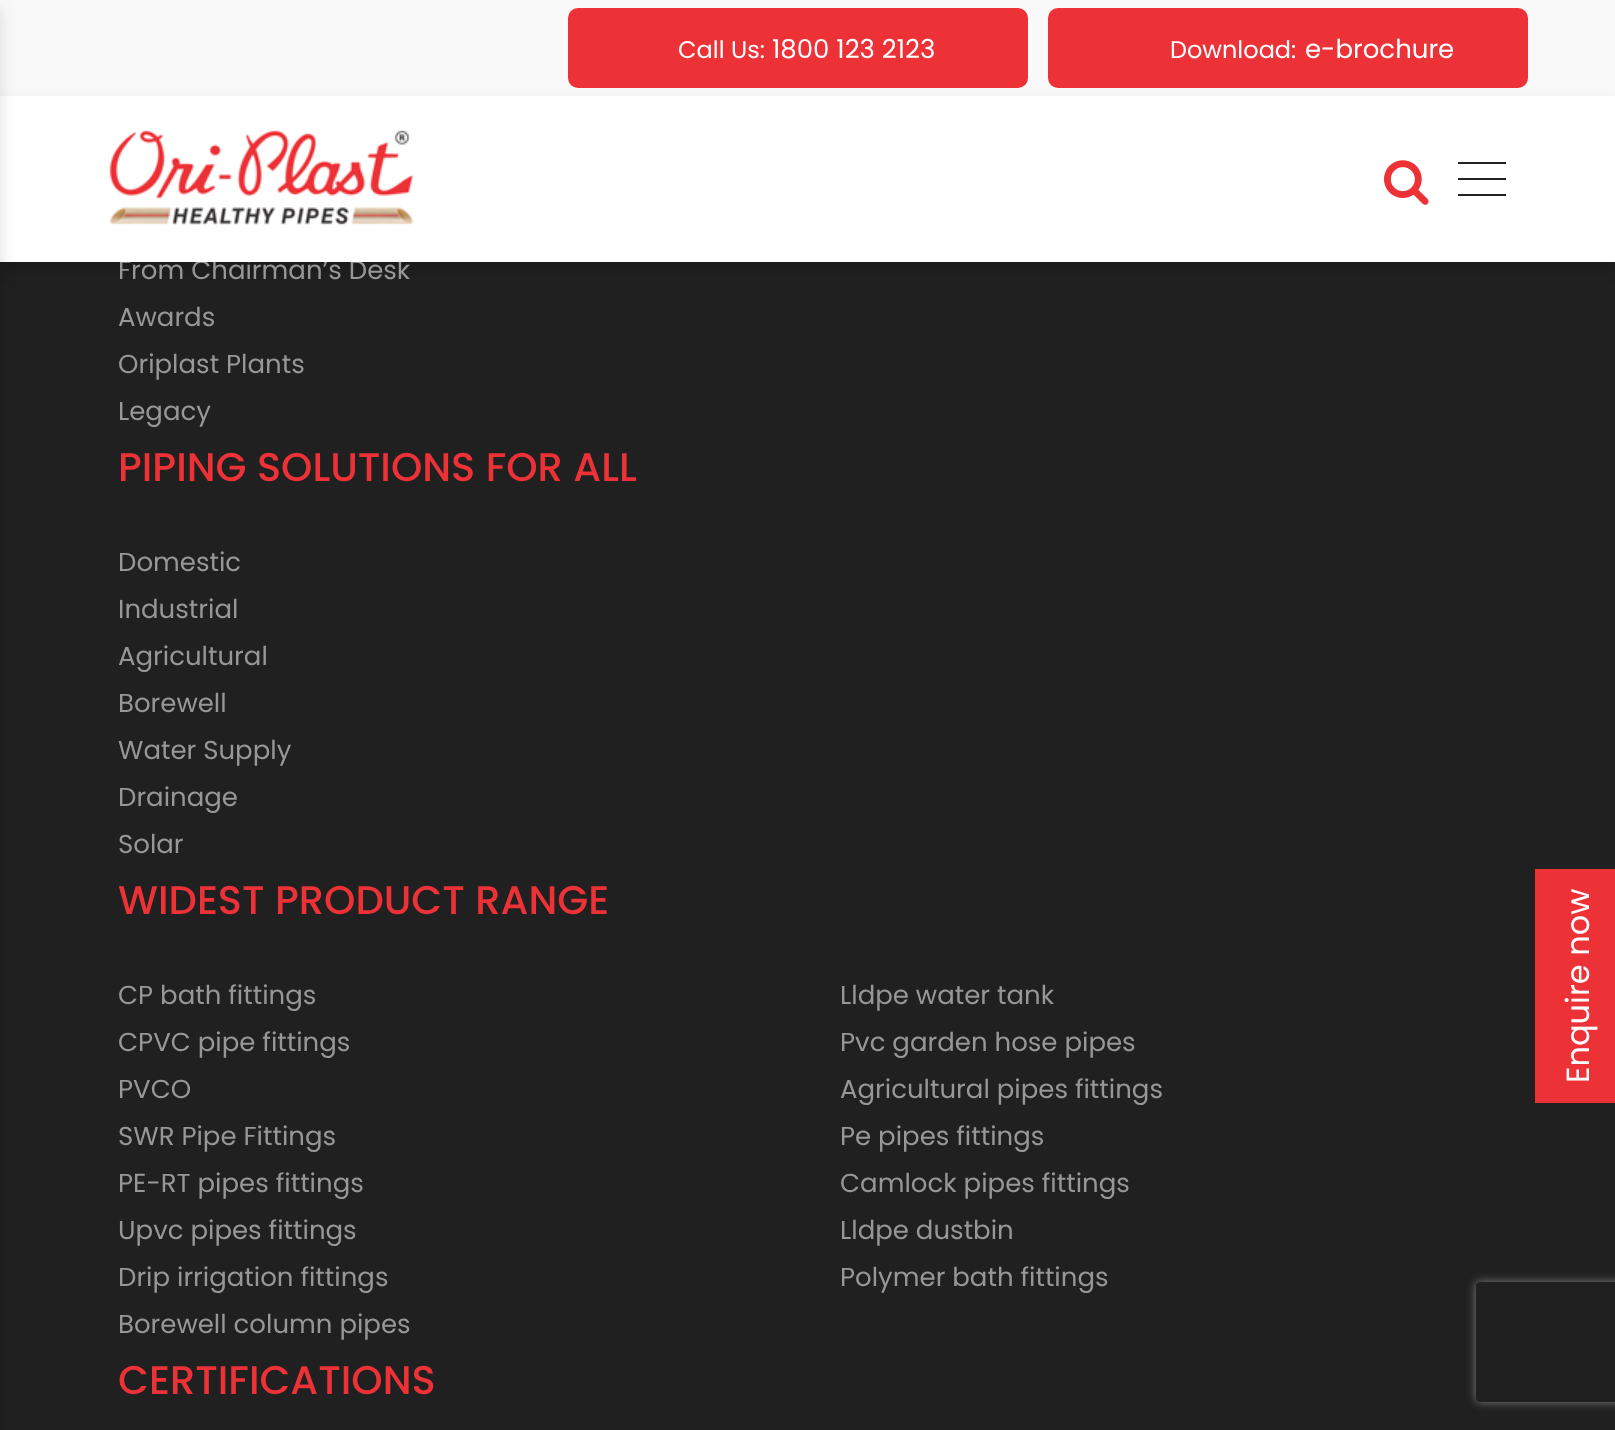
async function draw(canvas) {
	canvas.width = 1615;
	canvas.height = 1430;
	const c = canvas.getContext('2d');
	c.miterLimit = 4;
	c.fontKerning = 'normal';
	async function loadImage(src) {
		const img = new Image();
		img.src = src;
		await img.decode();
		return img;
	}

	c.fillStyle = '#202020';
	c.fillRect(0, 0, 1615, 1430);
	c.fillStyle = '#f9f9f9';
	c.fillRect(0, 0, 1615, 96);
	c.fillStyle = '#ed3237';
	c.beginPath();
	c.roundRect(568, 8, 460, 80, 10);
	c.fill();
	c.beginPath();
	c.roundRect(1048, 8, 480, 80, 10);
	c.fill();
	c.fillStyle = '#00000021';
	c.filter = 'blur(8px)';
	c.beginPath();
	c.rect(0, 104, 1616, 166);
	c.fill();
	c.filter = 'none';
	c.font = '26px Poppins';
	c.fillStyle = '#979797';
	c.fillText('From Chairman’s Desk', 118, 279);
	c.fillStyle = '#fff';
	c.fillRect(0, 96, 1615, 166);
	c.fillStyle = '#00000021';
	c.filter = 'blur(8px)';
	c.beginPath();
	c.rect(-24, 8, 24, 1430);
	c.fill();
	c.filter = 'none';
	c.drawImage(await loadImage('img1.png'), 1384, 160, 45, 45);
	for (const [x, y, w, h, color] of [
		[1458, 178, 48, 2, '#222'],
		[1458, 162, 48, 2, '#222'],
		[1458, 194, 48, 2, '#222'],
	]) {
		c.fillStyle = color;
		c.fillRect(x, y, w, h);
	}
	c.drawImage(await loadImage('img2.png'), 109, 129, 305, 96);
	c.font = '24px Poppins';
	c.fillStyle = '#fff';
	c.fillText('Call Us:', 678, 58);
	c.font = '26px Poppins';
	c.fillText('1800 123 2123', 772, 58);
	c.font = '24px Poppins';
	c.fillText('Download:', 1170, 58);
	c.font = '26px Poppins';
	c.fillText('e-brochure', 1305, 58);
	c.fillStyle = '#979797';
	for (const [text, x, y] of [
		['Awards', 118, 326],
		['Oriplast Plants', 118, 373],
		['Legacy', 118, 420],
	]) {
		c.fillText(text, x, y);
	}
	c.font = '500 40px Poppins';
	c.fillStyle = '#ed3237';
	c.fillText('PIPING SOLUTIONS FOR ALL', 118, 481);
	c.font = '26px Poppins';
	c.fillStyle = '#979797';
	for (const [text, x, y] of [
		['Domestic', 118, 571],
		['Industrial', 118, 618],
		['Agricultural', 118, 665],
		['Borewell', 118, 712],
		['Water Supply', 118, 759],
		['Drainage', 118, 806],
		['Solar', 118, 853],
	]) {
		c.fillText(text, x, y);
	}
	c.font = '500 40px Poppins';
	c.fillStyle = '#ed3237';
	c.fillText('WIDEST PRODUCT RANGE', 118, 914);
	c.font = '26px Poppins';
	c.fillStyle = '#979797';
	for (const [text, x, y] of [
		['CP bath fittings', 118, 1004],
		['CPVC pipe fittings', 118, 1051],
		['PVCO', 118, 1098],
		['SWR Pipe Fittings', 118, 1145],
		['PE-RT pipes fittings', 118, 1192],
		['Upvc pipes fittings', 118, 1239],
		['Drip irrigation fittings', 118, 1286],
		['Borewell column pipes', 118, 1333],
		['Lldpe water tank', 840, 1004],
		['Pvc garden hose pipes', 840, 1051],
		['Agricultural pipes fittings', 840, 1098],
		['Pe pipes fittings', 840, 1145],
		['Camlock pipes fittings', 840, 1192],
		['Lldpe dustbin', 840, 1239],
		['Polymer bath fittings', 840, 1286],
	]) {
		c.fillText(text, x, y);
	}
	c.font = '500 40px Poppins';
	c.fillStyle = '#ed3237';
	c.fillText('CERTIFICATIONS', 118, 1394);
	c.fillRect(1535, 869, 80, 234);
	c.font = '32px Poppins';
	c.fillStyle = '#fff';
	c.save();
	c.translate(1589, 1083);
	c.rotate(-90 * Math.PI / 180);
	c.fillText('Enquire now', 0, 0);
	c.restore();
	c.save();
	c.beginPath();
	c.moveTo(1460, 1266);
	c.lineTo(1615, 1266);
	c.lineTo(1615, 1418);
	c.lineTo(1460, 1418);
	c.closePath();
	c.moveTo(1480, 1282);
	c.lineTo(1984, 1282);
	c.bezierCurveTo(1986, 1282, 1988, 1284, 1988, 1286);
	c.lineTo(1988, 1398);
	c.bezierCurveTo(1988, 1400, 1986, 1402, 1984, 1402);
	c.lineTo(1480, 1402);
	c.bezierCurveTo(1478, 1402, 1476, 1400, 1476, 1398);
	c.lineTo(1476, 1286);
	c.bezierCurveTo(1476, 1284, 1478, 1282, 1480, 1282);
	c.closePath();
	c.clip('evenodd');
	c.fillStyle = '#808080';
	c.filter = 'blur(5px)';
	c.beginPath();
	c.roundRect(1476, 1282, 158, 120, 4);
	c.fill();
	c.filter = 'none';
	c.restore();
}

draw(document.querySelector('canvas'));
